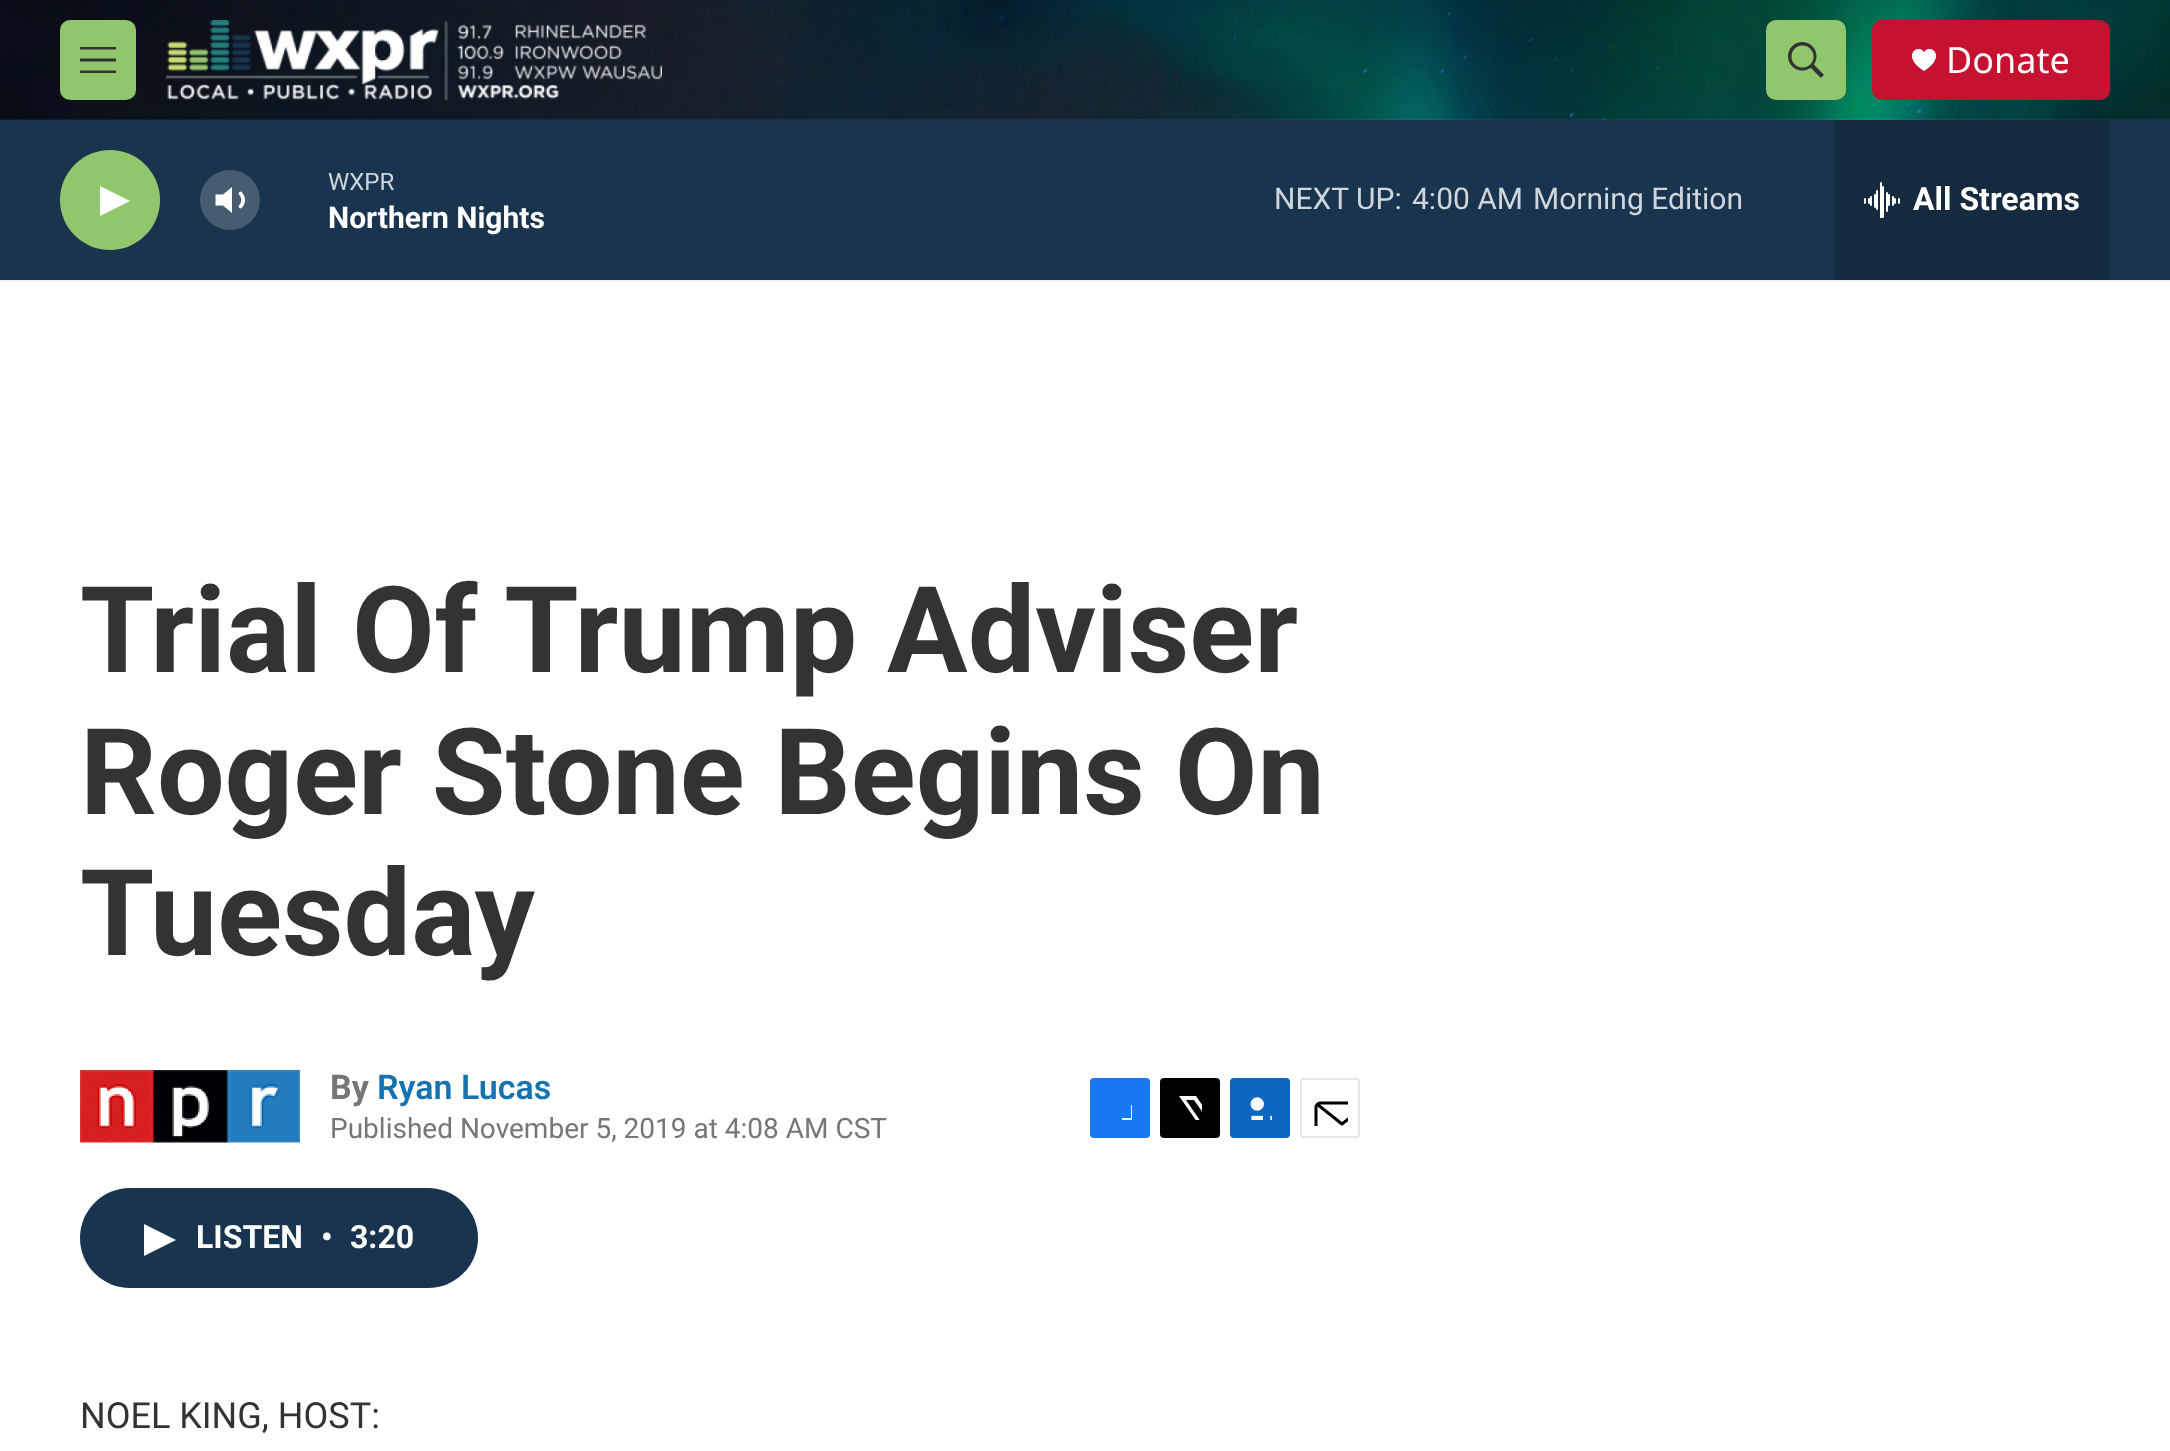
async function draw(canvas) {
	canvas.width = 2170;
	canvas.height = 1451;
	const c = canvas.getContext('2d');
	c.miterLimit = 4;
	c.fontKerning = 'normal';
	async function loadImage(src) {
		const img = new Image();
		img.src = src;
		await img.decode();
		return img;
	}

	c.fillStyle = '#fff';
	c.fillRect(0, 0, 2170, 1451);
	c.fillStyle = '#f5f5f5';
	c.fillRect(0, 280, 2170, 2);
	c.drawImage(await loadImage('img1.png'), 0, 0, 2170, 120);
	c.fillStyle = '#92c66c';
	c.beginPath();
	c.roundRect(60, 20, 76, 80, 10);
	c.fill();
	c.fillStyle = '#333';
	c.beginPath();
	c.moveTo(80, 61.5);
	c.lineTo(80, 58.5);
	c.lineTo(116, 58.5);
	c.lineTo(116, 61.5);
	c.closePath();
	c.moveTo(80, 49.5);
	c.lineTo(80, 47);
	c.lineTo(116, 47);
	c.lineTo(116, 49.5);
	c.closePath();
	c.moveTo(80, 73);
	c.lineTo(80, 70.5);
	c.lineTo(116, 70.5);
	c.lineTo(116, 73);
	c.closePath();
	c.fill('evenodd');
	c.drawImage(await loadImage('img2.png'), 166, 20, 496, 80);
	c.fillStyle = '#92c66c';
	c.beginPath();
	c.roundRect(1766, 20, 80, 80, 10);
	c.fill();
	c.drawImage(await loadImage('img3.png'), 1788, 42, 36, 36);
	c.fillStyle = '#c41230';
	c.beginPath();
	c.roundRect(1872, 20, 238, 80, 10);
	c.fill();
	c.drawImage(await loadImage('img4.png'), 1912, 49, 24, 22);
	c.font = '36px Noto Sans';
	c.fillStyle = '#fff';
	c.fillText('Donate', 1946, 73);
	c.fillStyle = '#19344e';
	c.fillRect(0, 120, 2170, 160);
	c.fillStyle = '#92c66c';
	c.beginPath();
	c.arc(110, 200, 50, 0, 2 * Math.PI);
	c.fill();
	c.fillStyle = '#fff';
	c.beginPath();
	c.moveTo(100, 186);
	c.lineTo(130, 201);
	c.lineTo(100, 216);
	c.closePath();
	c.fill();
	c.beginPath();
	c.moveTo(232, 187);
	c.lineTo(223, 194.5);
	c.lineTo(215.5, 194.5);
	c.lineTo(215.5, 205.5);
	c.lineTo(223, 205.5);
	c.lineTo(232, 213);
	c.closePath();
	c.fill();
	c.beginPath();
	c.moveTo(240.5, 193.5);
	c.bezierCurveTo(244, 197, 244, 203, 240.5, 206.5);
	c.strokeStyle = '#fff';
	c.lineWidth = 3.7;
	c.lineCap = 'round';
	c.lineJoin = 'round';
	c.stroke();
	c.fillStyle = '#ffffff33';
	c.beginPath();
	c.arc(230, 200, 30, 0, 2 * Math.PI);
	c.fill();
	c.font = '24px "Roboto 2"';
	c.fillStyle = '#d1d6dc';
	c.fillText('WXPR', 328, 190);
	c.font = 'bold 30px "Roboto 2"';
	c.fillStyle = '#fff';
	c.fillText('Northern Nights', 328, 228);
	c.font = '30px "Roboto 2"';
	c.fillStyle = '#d1d6dc';
	for (const [text, x, y] of [
		['NEXT UP:', 1274, 209],
		['4:00 AM', 1412, 209],
		['Morning Edition', 1533, 209],
	]) {
		c.fillText(text, x, y);
	}
	c.fillStyle = '#142a3e';
	c.fillRect(1834, 120, 276, 160);
	c.drawImage(await loadImage('img5.png'), 1864, 182, 36, 36);
	c.font = 'bold 32px "Roboto 2"';
	c.fillStyle = '#fff';
	c.fillText('All Streams', 1913, 210);
	c.font = 'bold 120px Roboto';
	c.fillStyle = '#333';
	for (const [text, x, y] of [
		['Trial Of Trump Adviser', 80, 672],
		['Roger Stone Begins On', 80, 814],
		['Tuesday', 80, 955],
	]) {
		c.fillText(text, x, y);
	}
	c.drawImage(await loadImage('img6.png'), 80, 1070, 220, 74);
	c.font = 'bold 34px Roboto';
	c.fillStyle = '#767676';
	c.fillText('By', 330, 1099);
	c.font = '600 34px Roboto';
	c.fillStyle = '#1772b0';
	c.fillText('Ryan Lucas', 377, 1099);
	c.font = '28px Roboto';
	c.fillStyle = '#767676';
	c.fillText('Published November 5, 2019 at 4:08 AM CST', 330, 1138);
	c.fillStyle = '#1778f2';
	c.beginPath();
	c.roundRect(1090, 1078, 60, 60, 4);
	c.fill();
	c.save();
	c.beginPath();
	c.rect(1108, 1096, 24, 24);
	c.clip();
	c.fillStyle = '#fff';
	c.beginPath();
	c.moveTo(1141, 1138);
	c.lineTo(1131, 1138);
	c.lineTo(1131, 1128);
	c.lineTo(1122, 1128);
	c.lineTo(1122, 1118);
	c.lineTo(1131, 1118);
	c.lineTo(1131, 1107);
	c.bezierCurveTo(1133, 1098, 1142, 1096, 1150, 1097);
	c.lineTo(1150, 1106);
	c.bezierCurveTo(1139, 1106, 1141, 1109, 1141, 1118);
	c.lineTo(1150, 1118);
	c.lineTo(1150, 1123);
	c.lineTo(1149, 1128);
	c.lineTo(1141, 1128);
	c.closePath();
	c.fill();
	c.restore();
	c.fillStyle = '#000';
	c.beginPath();
	c.roundRect(1160, 1078, 60, 60, 4);
	c.fill();
	c.save();
	c.beginPath();
	c.rect(1178, 1096, 24, 24);
	c.clip();
	c.fillStyle = '#fff';
	c.beginPath();
	c.moveTo(1214, 1121);
	c.lineTo(1220, 1130);
	c.bezierCurveTo(1220, 1132, 1221, 1135, 1219, 1136);
	c.lineTo(1194, 1100);
	c.lineTo(1186, 1100);
	c.lineTo(1212, 1138);
	c.lineTo(1207, 1138);
	c.lineTo(1204, 1133);
	c.lineTo(1200, 1138);
	c.lineTo(1194, 1138);
	c.lineTo(1202, 1129);
	c.lineTo(1179, 1096);
	c.lineTo(1196, 1096);
	c.lineTo(1211, 1118);
	c.lineTo(1220, 1108);
	c.lineTo(1220, 1114);
	c.closePath();
	c.fill();
	c.restore();
	c.fillStyle = '#0a66c1';
	c.beginPath();
	c.roundRect(1230, 1078, 60, 60, 4);
	c.fill();
	c.drawImage(await loadImage('img7.png'), 1250, 1097, 22, 23);
	c.beginPath();
	c.roundRect(1301, 1079, 58, 58, 3);
	c.strokeStyle = '#e6e6e6';
	c.lineWidth = 2;
	c.lineJoin = 'miter';
	c.stroke();
	c.save();
	c.beginPath();
	c.rect(1312, 1090, 36, 36);
	c.clip();
	c.beginPath();
	c.moveTo(1368, 1134);
	c.bezierCurveTo(1368, 1136, 1366, 1137.5, 1364, 1137.5);
	c.lineTo(1320, 1137.5);
	c.bezierCurveTo(1318, 1137.5, 1316, 1136, 1316, 1134);
	c.lineTo(1316, 1107);
	c.bezierCurveTo(1316, 1105, 1318, 1103, 1320, 1103);
	c.lineTo(1364, 1103);
	c.bezierCurveTo(1366, 1103, 1368, 1105, 1368, 1107);
	c.closePath();
	c.moveTo(1366.5, 1104.5);
	c.lineTo(1342, 1124);
	c.lineTo(1317.5, 1104.5);
	c.strokeStyle = '#000';
	c.lineWidth = 3;
	c.lineJoin = 'round';
	c.stroke();
	c.restore();
	c.fillStyle = '#19344e';
	c.beginPath();
	c.roundRect(80, 1188, 398, 100, 50);
	c.fill();
	c.fillStyle = '#fff';
	c.beginPath();
	c.moveTo(144, 1224);
	c.lineTo(176, 1240);
	c.lineTo(144, 1256);
	c.closePath();
	c.fill();
	c.font = 'bold 32px "Roboto 2"';
	for (const [text, x, y] of [
		['LISTEN', 196, 1248],
		['•', 321, 1248],
		['3:20', 350, 1248],
	]) {
		c.fillText(text, x, y);
	}
	c.font = '36px "Roboto 2"';
	c.fillStyle = '#333';
	c.fillText('NOEL KING, HOST:', 80, 1428);
}

draw(document.querySelector('canvas'));
